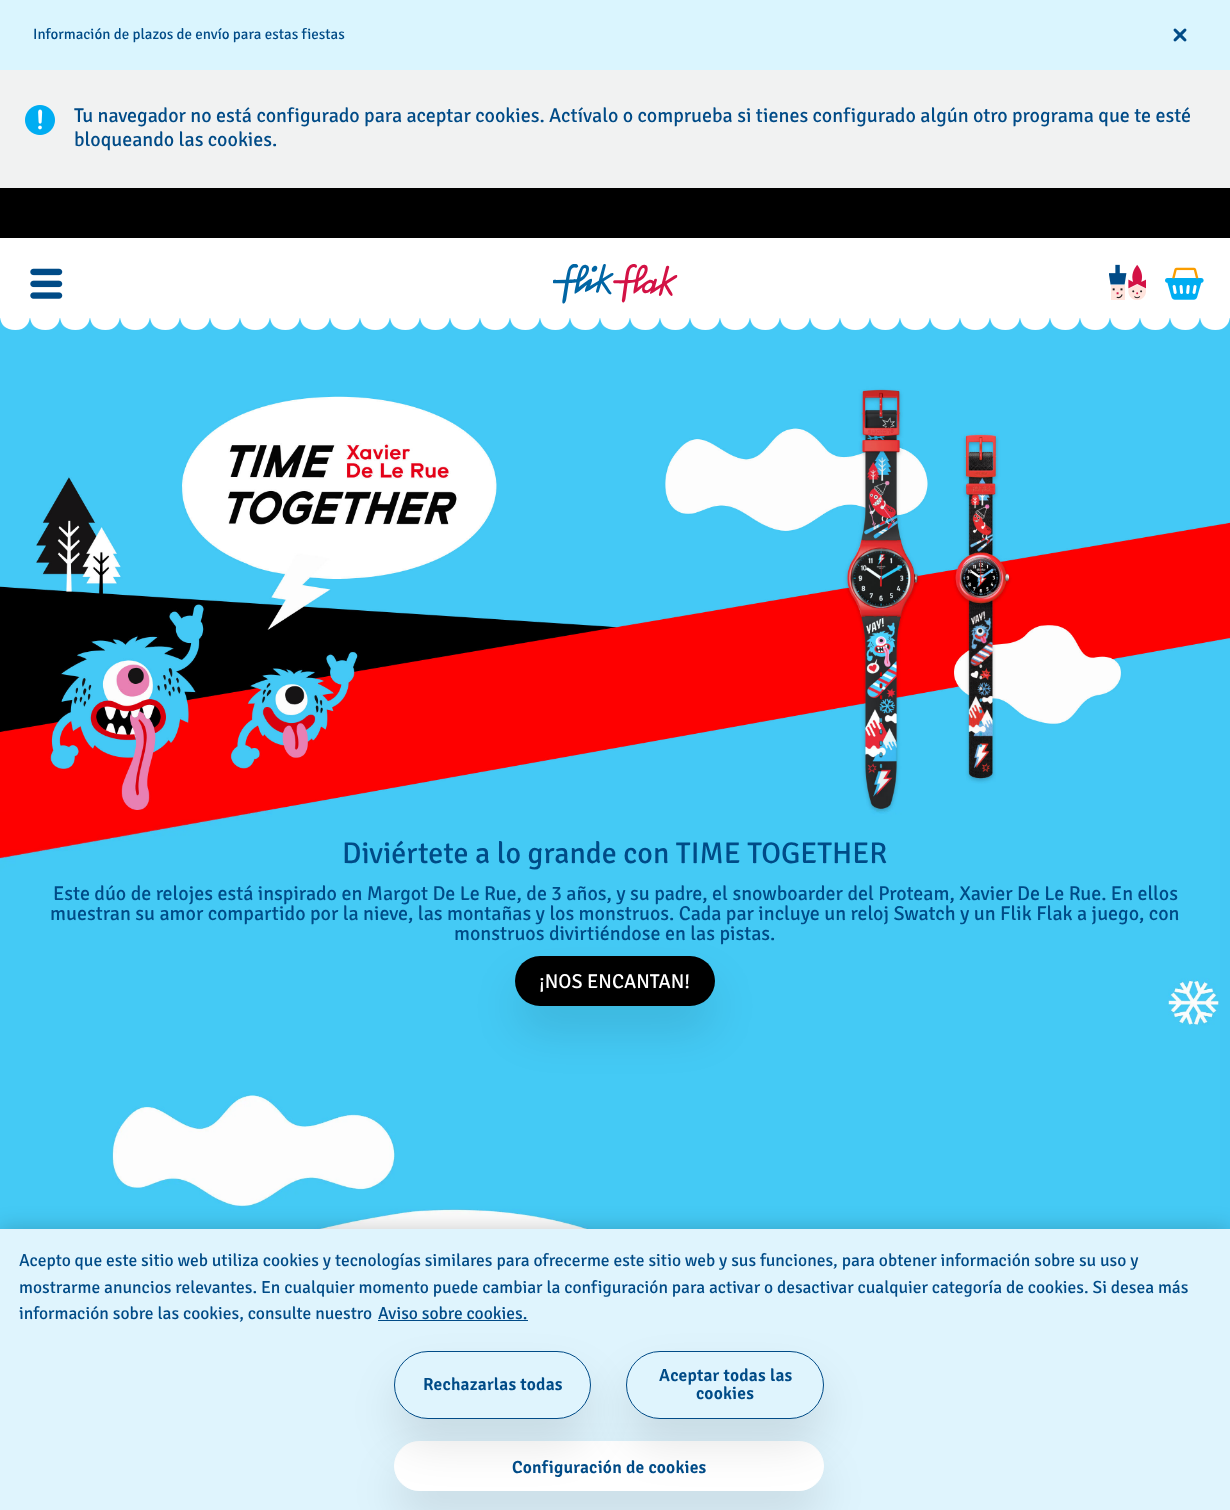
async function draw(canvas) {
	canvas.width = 1230;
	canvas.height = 1510;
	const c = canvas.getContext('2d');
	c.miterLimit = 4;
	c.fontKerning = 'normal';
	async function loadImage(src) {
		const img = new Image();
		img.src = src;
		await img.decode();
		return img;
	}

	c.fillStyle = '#000';
	c.fillRect(0, 0, 1230, 1510);
	c.fillStyle = '#daf5fe';
	c.fillRect(0, 0, 1230, 70);
	c.font = '15px Signika';
	c.fillStyle = '#004b87';
	c.fillText('Información de plazos de envío para estas fiestas', 33, 39);
	c.drawImage(await loadImage('img1.png'), 1173, 28, 14, 14);
	c.fillStyle = '#f1f2f2';
	c.fillRect(0, 70, 1230, 118);
	c.drawImage(await loadImage('img2.png'), 25, 105, 30, 30);
	c.font = '20px Signika';
	c.fillStyle = '#004b87';
	c.fillText('Tu navegador no está configurado para aceptar cookies. Actívalo o comprueba si tienes configurado algún otro programa que te esté', 74, 122);
	c.fillText('bloqueando las cookies.', 74, 146);
	c.fillStyle = '#fff';
	c.fillRect(0, 238, 1230, 80);
	c.drawImage(await loadImage('img3.png'), 30, 268, 33, 31);
	c.drawImage(await loadImage('img4.png'), 553, 264, 125, 40);
	c.drawImage(await loadImage('img5.png'), 1109, 264, 37, 36);
	c.drawImage(await loadImage('img6.png'), 1165, 267, 39, 33);
	c.drawImage(await loadImage('img8.png'), 0, 318, 1230, 492);
	c.drawImage(await loadImage('img7.png'), 0, 318, 1230, 12);
	c.fillStyle = '#44c8f5';
	c.fillRect(1220, 810, 10, 419);
	c.drawImage(await loadImage('img9.png'), 0, 810, 1220, 419);
	c.font = '30px Signika';
	c.fillStyle = '#004b87';
	c.fillText('Diviértete a lo grande con TIME TOGETHER', 342, 863);
	c.font = '20px Signika';
	for (const [text, x, y] of [
		['Este dúo de relojes está inspirado en Margot De Le Rue, de 3 años, y su padre, el snowboarder del Proteam, Xavier De Le Rue. En ellos', 53, 900],
		['muestran su amor compartido por la nieve, las montañas y los monstruos. Cada par incluye un reloj Swatch y un Flik Flak a juego, con', 50, 920],
		['monstruos divirtiéndose en las pistas.', 454, 940],
	]) {
		c.fillText(text, x, y);
	}
	c.fillStyle = '#0000001a';
	c.filter = 'blur(22.5px)';
	c.beginPath();
	c.roundRect(515, 981, 200, 50, 25);
	c.fill();
	c.filter = 'none';
	c.fillStyle = '#000';
	c.beginPath();
	c.roundRect(515, 956, 200, 50, 25);
	c.fill();
	c.fillStyle = '#fff';
	c.fillText('¡NOS ENCANTAN!', 539, 988);
	c.fillStyle = '#00000033';
	c.filter = 'blur(11px)';
	c.beginPath();
	c.rect(0, 1229, 1230, 281);
	c.fill();
	c.filter = 'none';
	c.fillStyle = '#dff4fd';
	c.fillRect(0, 1229, 1230, 281);
	c.font = '17.5px Signika';
	c.fillStyle = '#004b87';
	c.fillText('Acepto que este sitio web utiliza cookies y tecnologías similares para ofrecerme este sitio web y sus funciones, para obtener información sobre su uso y', 19, 1266);
	c.fillText('mostrarme anuncios relevantes. En cualquier momento puede cambiar la configuración para activar o desactivar cualquier categoría de cookies. Si desea más', 19, 1293);
	c.fillStyle = '#0000001a';
	c.filter = 'blur(22.5px)';
	c.beginPath();
	c.roundRect(394, 1466, 430, 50, 25);
	c.fill();
	c.filter = 'none';
	c.fillStyle = '#fff';
	c.beginPath();
	c.roundRect(394.5, 1441.5, 429, 49, 24.5);
	c.fill();
	c.strokeStyle = '#fff';
	c.stroke();
	c.fillStyle = '#0000001a';
	c.filter = 'blur(22.5px)';
	c.beginPath();
	c.roundRect(394, 1376, 197, 68, 34);
	c.fill();
	c.filter = 'none';
	c.fillStyle = '#004b87';
	c.fillText('información sobre las cookies, consulte nuestro', 19, 1319);
	c.fillText('Aviso sobre cookies.', 378, 1319);
	c.fillRect(378, 1320, 150, 1);
	c.fillStyle = '#dff4fd';
	c.beginPath();
	c.roundRect(394.5, 1351.5, 196, 67, 33.5);
	c.fill();
	c.strokeStyle = '#004b87';
	c.stroke();
	c.letterSpacing = '0.2px';
	c.font = '600 17.5px Signika';
	c.fillStyle = '#004b87';
	c.fillText('Rechazarlas todas', 423, 1390);
	c.fillStyle = '#0000001a';
	c.filter = 'blur(22.5px)';
	c.beginPath();
	c.roundRect(626, 1376, 198, 68, 34);
	c.fill();
	c.filter = 'none';
	c.fillStyle = '#dff4fd';
	c.beginPath();
	c.roundRect(626.5, 1351.5, 197, 67, 33.5);
	c.fill();
	c.stroke();
	c.fillStyle = '#004b87';
	for (const [text, x, y] of [
		['Aceptar todas las', 659, 1381],
		['cookies', 696, 1399],
		['Configuración de cookies', 512, 1473],
	]) {
		c.fillText(text, x, y);
	}
}

draw(document.querySelector('canvas'));
